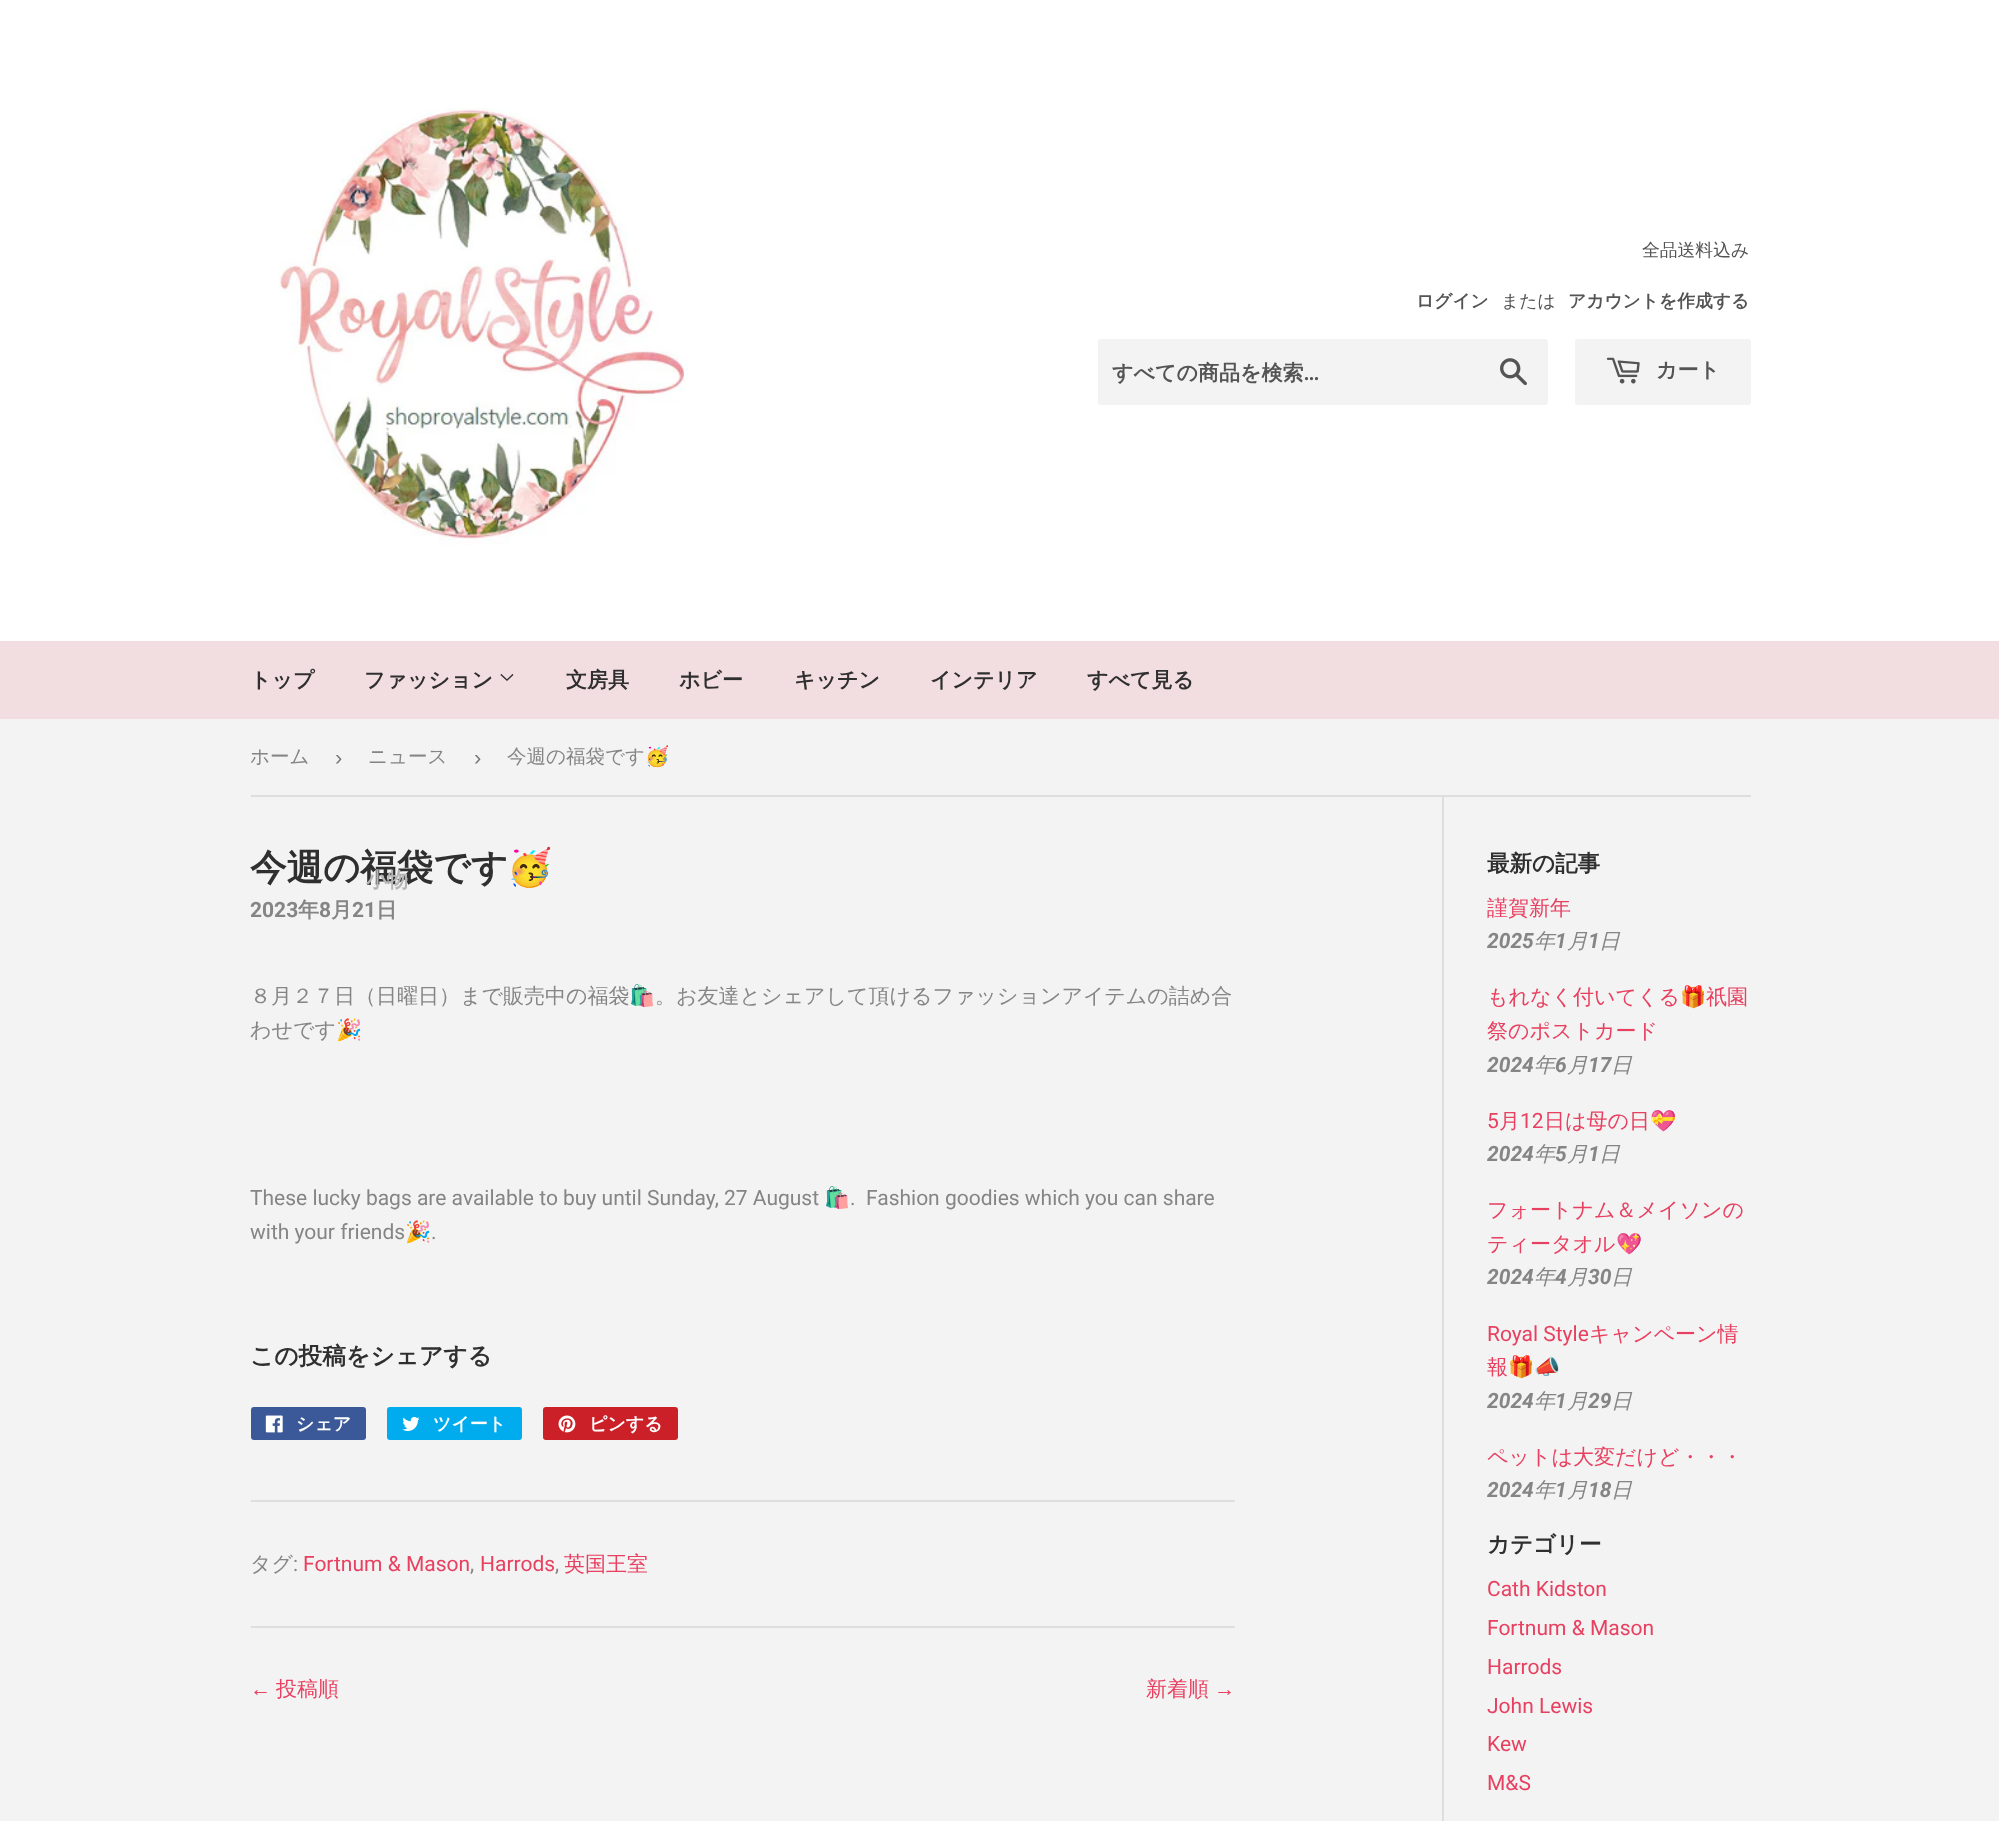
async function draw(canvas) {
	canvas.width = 1999;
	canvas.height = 1821;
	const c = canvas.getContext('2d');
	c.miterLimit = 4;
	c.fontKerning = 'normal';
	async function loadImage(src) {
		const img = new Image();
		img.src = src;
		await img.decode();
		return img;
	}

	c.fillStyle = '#f3f3f3';
	c.fillRect(0, 0, 1999, 1821);
	c.fillStyle = '#fff';
	c.fillRect(0, 0, 1999, 641);
	c.drawImage(await loadImage('img1.png'), 279, 108, 409, 437);
	c.font = '500 17.8px WenQuanYi Zen Hei';
	c.fillStyle = '#545454';
	c.fillText('全品送料込み', 1642, 256);
	c.font = 'bold 17.8px WenQuanYi Zen Hei';
	c.fillText('ログイン', 1416, 307);
	c.font = '500 17.8px WenQuanYi Zen Hei';
	c.fillText('または', 1501, 307);
	c.font = 'bold 17.8px WenQuanYi Zen Hei';
	c.fillText('アカウントを作成する', 1568, 307);
	c.fillStyle = '#f3f3f3';
	c.beginPath();
	c.roundRect(1098, 339, 450, 66, 3);
	c.fill();
	c.font = 'bold 21px WenQuanYi Zen Hei';
	c.fillStyle = '#545454';
	c.fillText('すべての商品を検索', 1112, 380);
	c.font = 'bold 21px Lato';
	c.fillText('...', 1304, 380);
	c.drawImage(await loadImage('img2.png'), 1500, 358, 27, 28);
	c.fillStyle = '#f3f3f3';
	c.beginPath();
	c.roundRect(1575, 339, 176, 66, 3);
	c.fill();
	c.drawImage(await loadImage('img3.png'), 1606, 357, 34, 27);
	c.font = 'bold 21px WenQuanYi Zen Hei';
	c.fillStyle = '#545454';
	c.fillText('カート', 1656, 377);
	c.fillStyle = '#f2dde1';
	c.fillRect(0, 641, 1999, 78);
	c.fillStyle = '#2f2f2f';
	c.fillText('トップ', 250, 687);
	c.fillText('ファッション', 364, 687);
	c.drawImage(await loadImage('img4.png'), 500, 674, 14, 7);
	c.font = 'bold 36.5px WenQuanYi Zen Hei';
	c.fillText('今週の福袋です', 250, 880);
	c.font = 'bold 21px WenQuanYi Zen Hei';
	c.fillStyle = '#b5b5b5';
	c.fillText('小物', 366, 887);
	c.fillStyle = '#2f2f2f';
	for (const [text, x, y] of [
		['文房具', 566, 687],
		['ホビー', 679, 687],
		['キッチン', 794, 687],
		['インテリア', 930, 687],
		['すべて見る', 1087, 687],
	]) {
		c.fillText(text, x, y);
	}
	c.fillStyle = '#dedede';
	c.fillRect(251, 795, 1500, 2);
	c.font = '500 19.5px WenQuanYi Zen Hei';
	c.fillStyle = '#858585';
	c.fillText('ホーム', 250, 763);
	c.font = '22px Liberation Sans';
	c.fillStyle = '#767676';
	c.fillText('›', 335, 765);
	c.font = '500 19.5px WenQuanYi Zen Hei';
	c.fillStyle = '#858585';
	c.fillText('ニュース', 368, 763);
	c.font = '22px Liberation Sans';
	c.fillStyle = '#767676';
	c.fillText('›', 474, 765);
	c.font = '500 19.5px WenQuanYi Zen Hei';
	c.fillStyle = '#858585';
	c.fillText('今週の福袋です', 507, 763);
	c.font = '19.5px Noto Color Emoji';
	c.fillText('🥳', 645, 763);
	c.font = 'bold 36.5px Noto Color Emoji';
	c.fillStyle = '#2f2f2f';
	c.fillText('🥳', 507, 880);
	c.font = 'bold 21px Roboto';
	c.fillStyle = '#858585';
	c.fillText('2023', 250, 917);
	c.font = 'bold 21px WenQuanYi Zen Hei';
	c.fillText('年', 298, 917);
	c.font = 'bold 21px Roboto';
	c.fillText('8', 319, 917);
	c.font = 'bold 21px WenQuanYi Zen Hei';
	c.fillText('月', 331, 917);
	c.font = 'bold 21px Roboto';
	c.fillText('21', 352, 917);
	c.font = 'bold 21px WenQuanYi Zen Hei';
	c.fillText('日', 376, 917);
	c.font = '500 21px WenQuanYi Zen Hei';
	c.fillText('８月２７日（日曜日）まで販売中の福袋', 250, 1003);
	c.font = '21px Noto Color Emoji';
	c.fillText('🛍️', 629, 1003);
	c.font = '500 21px WenQuanYi Zen Hei';
	c.fillText('。お友達とシェアして頂けるファッションアイテムの詰め合', 655, 1003);
	c.fillText('わせです', 250, 1037);
	c.font = '21px Noto Color Emoji';
	c.fillText('🎉', 336, 1037);
	c.font = '21px Roboto';
	c.fillText('These lucky bags are available to buy until Sunday, 27 August', 250, 1205);
	c.font = '21px Noto Color Emoji';
	c.fillText('🛍️', 824, 1205);
	c.font = '21px Roboto';
	c.fillText('.  Fashion goodies which you can share', 850, 1205);
	c.fillText('with your friends', 250, 1239);
	c.font = '21px Noto Color Emoji';
	c.fillText('🎉', 405, 1239);
	c.font = '21px Roboto';
	c.fillText('.', 431, 1239);
	c.font = 'bold 23.75px WenQuanYi Zen Hei';
	c.fillStyle = '#2f2f2f';
	c.fillText('この投稿をシェアする', 250, 1364);
	c.fillStyle = '#3b5998';
	c.beginPath();
	c.roundRect(251, 1407, 115, 33, 3);
	c.fill();
	c.drawImage(await loadImage('img5.png'), 265, 1415, 18, 18);
	c.font = 'bold 18px WenQuanYi Zen Hei';
	c.fillStyle = '#fff';
	c.fillText('シェア', 296, 1430);
	c.fillStyle = '#00aced';
	c.beginPath();
	c.roundRect(387, 1407, 135, 33, 3);
	c.fill();
	c.drawImage(await loadImage('img6.png'), 402, 1416, 18, 15);
	c.fillStyle = '#fff';
	c.fillText('ツイート', 433, 1430);
	c.fillStyle = '#cb2027';
	c.beginPath();
	c.roundRect(543, 1407, 135, 33, 3);
	c.fill();
	c.drawImage(await loadImage('img7.png'), 558, 1415, 18, 18);
	c.fillStyle = '#fff';
	c.fillText('ピンする', 589, 1430);
	c.fillStyle = '#dedede';
	c.fillRect(251, 1500, 984, 2);
	c.font = '500 21px WenQuanYi Zen Hei';
	c.fillStyle = '#858585';
	c.fillText('タグ', 250, 1571);
	c.font = '21px Roboto';
	c.fillText(':', 293, 1571);
	c.fillStyle = '#e84060';
	c.fillText('Fortnum & Mason', 303, 1571);
	c.fillStyle = '#858585';
	c.fillText(',', 470, 1571);
	c.fillStyle = '#e84060';
	c.fillText('Harrods', 480, 1571);
	c.fillStyle = '#858585';
	c.fillText(',', 555, 1571);
	c.font = '500 21px WenQuanYi Zen Hei';
	c.fillStyle = '#e84060';
	c.fillText('英国王室', 564, 1571);
	c.fillStyle = '#dedede';
	c.fillRect(251, 1626, 984, 2);
	c.font = '21px Liberation Sans';
	c.fillStyle = '#e84060';
	c.fillText('←', 250, 1696);
	c.font = '500 21px WenQuanYi Zen Hei';
	c.fillText('投稿順', 276, 1696);
	c.fillText('新着順', 1146, 1696);
	c.font = '21px Liberation Sans';
	c.fillText('→', 1214, 1696);
	c.fillStyle = '#dedede';
	c.fillRect(1442, 797, 2, 1024);
	c.font = 'bold 22.5px WenQuanYi Zen Hei';
	c.fillStyle = '#2f2f2f';
	c.fillText('最新の記事', 1487, 871);
	c.font = '500 21px WenQuanYi Zen Hei';
	c.fillStyle = '#e84060';
	c.fillText('謹賀新年', 1487, 915);
	c.font = 'italic bold 21px Roboto';
	c.fillStyle = '#858585';
	c.fillText('2025', 1487, 948);
	c.font = 'italic 500 21px WenQuanYi Zen Hei';
	c.fillText('年', 1534, 948);
	c.font = 'italic bold 21px Roboto';
	c.fillText('1', 1555, 948);
	c.font = 'italic 500 21px WenQuanYi Zen Hei';
	c.fillText('月', 1567, 948);
	c.font = 'italic bold 21px Roboto';
	c.fillText('1', 1588, 948);
	c.font = 'italic 500 21px WenQuanYi Zen Hei';
	c.fillText('日', 1599, 948);
	c.font = '500 21px WenQuanYi Zen Hei';
	c.fillStyle = '#e84060';
	c.fillText('もれなく付いてくる', 1487, 1004);
	c.font = '21px Noto Color Emoji';
	c.fillText('🎁', 1680, 1004);
	c.font = '500 21px WenQuanYi Zen Hei';
	c.fillText('祇園', 1706, 1004);
	c.fillText('祭のポストカード', 1487, 1038);
	c.font = 'italic bold 21px Roboto';
	c.fillStyle = '#858585';
	c.fillText('2024', 1487, 1072);
	c.font = 'italic 500 21px WenQuanYi Zen Hei';
	c.fillText('年', 1534, 1072);
	c.font = 'italic bold 21px Roboto';
	c.fillText('6', 1555, 1072);
	c.font = 'italic 500 21px WenQuanYi Zen Hei';
	c.fillText('月', 1567, 1072);
	c.font = 'italic bold 21px Roboto';
	c.fillText('17', 1588, 1072);
	c.font = 'italic 500 21px WenQuanYi Zen Hei';
	c.fillText('日', 1611, 1072);
	c.font = '21px Roboto';
	c.fillStyle = '#e84060';
	c.fillText('5', 1487, 1128);
	c.font = '500 21px WenQuanYi Zen Hei';
	c.fillText('月', 1499, 1128);
	c.font = '21px Roboto';
	c.fillText('12', 1520, 1128);
	c.font = '500 21px WenQuanYi Zen Hei';
	c.fillText('日は母の日', 1544, 1128);
	c.font = '21px Noto Color Emoji';
	c.fillText('💝', 1650, 1128);
	c.font = 'italic bold 21px Roboto';
	c.fillStyle = '#858585';
	c.fillText('2024', 1487, 1161);
	c.font = 'italic 500 21px WenQuanYi Zen Hei';
	c.fillText('年', 1534, 1161);
	c.font = 'italic bold 21px Roboto';
	c.fillText('5', 1555, 1161);
	c.font = 'italic 500 21px WenQuanYi Zen Hei';
	c.fillText('月', 1567, 1161);
	c.font = 'italic bold 21px Roboto';
	c.fillText('1', 1588, 1161);
	c.font = 'italic 500 21px WenQuanYi Zen Hei';
	c.fillText('日', 1599, 1161);
	c.font = '500 21px WenQuanYi Zen Hei';
	c.fillStyle = '#e84060';
	c.fillText('フォートナム＆メイソンの', 1487, 1217);
	c.fillText('ティータオル', 1487, 1251);
	c.font = '21px Noto Color Emoji';
	c.fillText('💖', 1616, 1251);
	c.font = 'italic bold 21px Roboto';
	c.fillStyle = '#858585';
	c.fillText('2024', 1487, 1284);
	c.font = 'italic 500 21px WenQuanYi Zen Hei';
	c.fillText('年', 1534, 1284);
	c.font = 'italic bold 21px Roboto';
	c.fillText('4', 1555, 1284);
	c.font = 'italic 500 21px WenQuanYi Zen Hei';
	c.fillText('月', 1567, 1284);
	c.font = 'italic bold 21px Roboto';
	c.fillText('30', 1588, 1284);
	c.font = 'italic 500 21px WenQuanYi Zen Hei';
	c.fillText('日', 1611, 1284);
	c.font = '21px Roboto';
	c.fillStyle = '#e84060';
	c.fillText('Royal Style', 1487, 1341);
	c.font = '500 21px WenQuanYi Zen Hei';
	c.fillText('キャンペーン情', 1589, 1341);
	c.fillText('報', 1487, 1374);
	c.font = '21px Noto Color Emoji';
	c.fillText('🎁📣', 1508, 1374);
	c.font = 'italic bold 21px Roboto';
	c.fillStyle = '#858585';
	c.fillText('2024', 1487, 1408);
	c.font = 'italic 500 21px WenQuanYi Zen Hei';
	c.fillText('年', 1534, 1408);
	c.font = 'italic bold 21px Roboto';
	c.fillText('1', 1555, 1408);
	c.font = 'italic 500 21px WenQuanYi Zen Hei';
	c.fillText('月', 1567, 1408);
	c.font = 'italic bold 21px Roboto';
	c.fillText('29', 1588, 1408);
	c.font = 'italic 500 21px WenQuanYi Zen Hei';
	c.fillText('日', 1611, 1408);
	c.font = '500 21px WenQuanYi Zen Hei';
	c.fillStyle = '#e84060';
	c.fillText('ペットは大変だけど・・・', 1487, 1464);
	c.font = 'italic bold 21px Roboto';
	c.fillStyle = '#858585';
	c.fillText('2024', 1487, 1497);
	c.font = 'italic 500 21px WenQuanYi Zen Hei';
	c.fillText('年', 1534, 1497);
	c.font = 'italic bold 21px Roboto';
	c.fillText('1', 1555, 1497);
	c.font = 'italic 500 21px WenQuanYi Zen Hei';
	c.fillText('月', 1567, 1497);
	c.font = 'italic bold 21px Roboto';
	c.fillText('18', 1588, 1497);
	c.font = 'italic 500 21px WenQuanYi Zen Hei';
	c.fillText('日', 1611, 1497);
	c.font = 'bold 22.5px WenQuanYi Zen Hei';
	c.fillStyle = '#2f2f2f';
	c.fillText('カテゴリー', 1487, 1552);
	c.font = '21px Roboto';
	c.fillStyle = '#e84060';
	for (const [text, x, y] of [
		['Cath Kidston', 1487, 1596],
		['Fortnum & Mason', 1487, 1635],
		['Harrods', 1487, 1674],
		['John Lewis', 1487, 1713],
		['Kew', 1487, 1751],
		['M&S', 1487, 1790],
	]) {
		c.fillText(text, x, y);
	}
}

draw(document.querySelector('canvas'));
